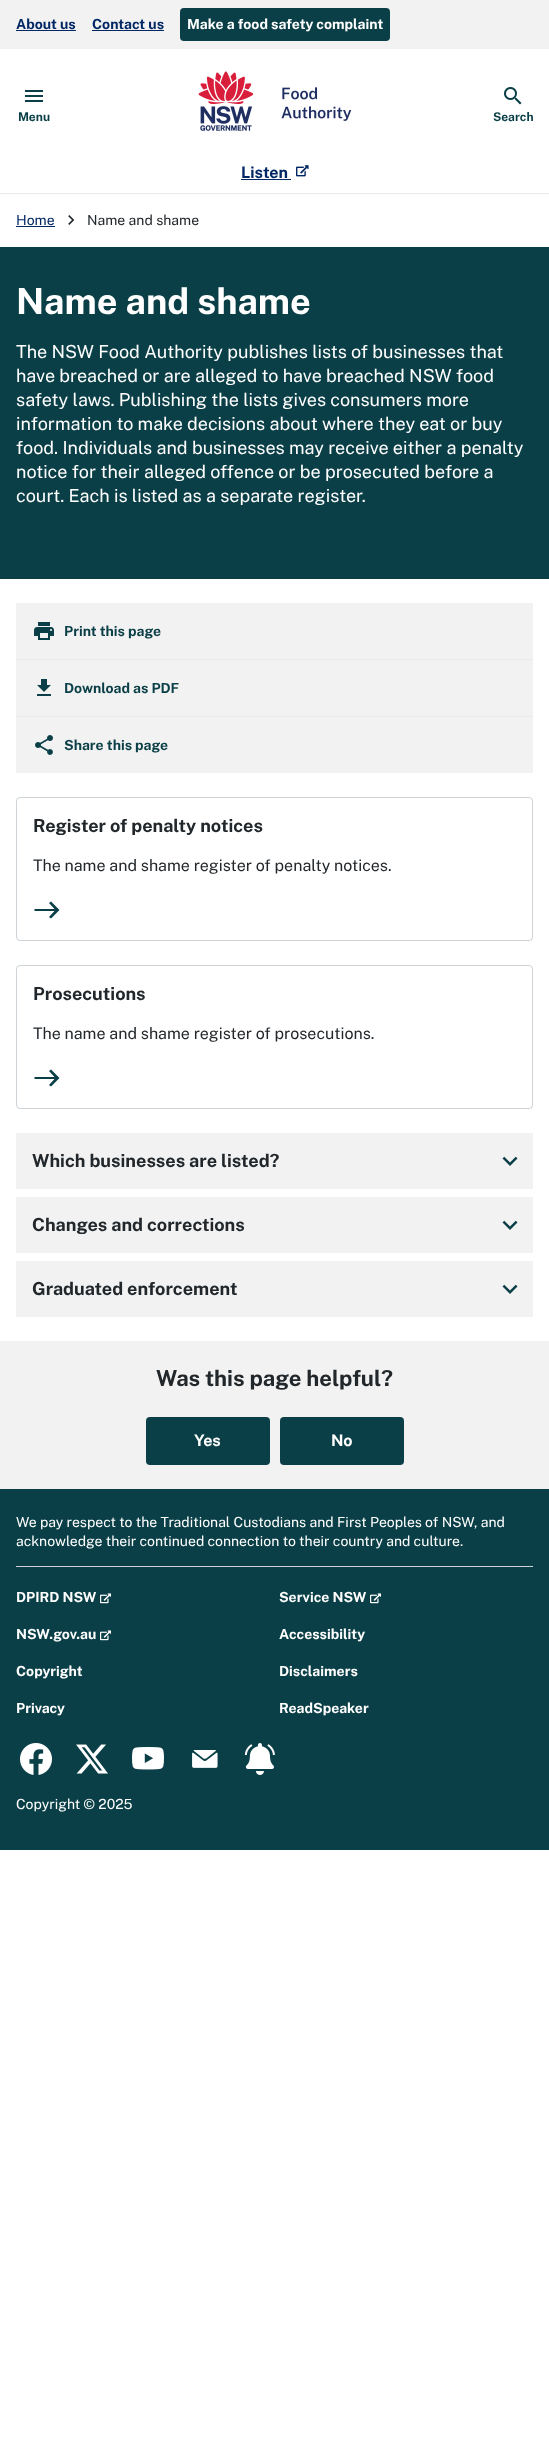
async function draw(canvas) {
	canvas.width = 549;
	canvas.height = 2455;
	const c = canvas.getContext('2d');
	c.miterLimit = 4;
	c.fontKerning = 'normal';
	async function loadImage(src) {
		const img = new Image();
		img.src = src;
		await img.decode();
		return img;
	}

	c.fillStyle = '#fff';
	c.fillRect(0, 0, 549, 2455);
	c.fillStyle = '#f2f2f2';
	c.fillRect(0, 0, 549, 49);
	c.font = 'bold 14px Public Sans';
	c.fillStyle = '#002664';
	c.fillText('About us', 16, 29);
	c.fillRect(16, 30, 60, 1);
	c.fillText('Contact us', 92, 29);
	c.fillRect(92, 30, 72, 1);
	c.fillStyle = '#0b3f47';
	c.beginPath();
	c.roundRect(180, 8, 210, 33, 4);
	c.fill();
	c.fillStyle = '#fff';
	c.fillText('Make a food safety complaint', 187, 29);
	c.fillStyle = '#ebebeb';
	c.fillRect(0, 193, 549, 1);
	c.drawImage(await loadImage('img1.png'), 25, 90, 18, 12);
	c.font = 'bold 12px Public Sans';
	c.fillStyle = '#0b3f47';
	c.fillText('Menu', 18, 121);
	c.drawImage(await loadImage('img2.png'), 198, 71, 154, 60);
	c.drawImage(await loadImage('img3.png'), 504, 87, 18, 18);
	c.fillText('Search', 493, 121);
	c.font = 'bold 16px Public Sans';
	c.fillStyle = '#002664';
	c.fillText('Listen', 241, 178);
	c.fillRect(241, 179, 50, 1);
	c.drawImage(await loadImage('img4.png'), 296, 165, 13, 12);
	c.font = '14px Public Sans';
	c.fillText('Home', 16, 225);
	c.fillRect(16, 226, 39, 1);
	c.drawImage(await loadImage('img5.png'), 68, 215, 7, 10);
	c.fillStyle = '#22272b';
	c.fillText('Name and shame', 87, 225);
	c.fillStyle = '#0b3f47';
	c.fillRect(0, 247, 549, 331);
	c.font = 'bold 36px Public Sans';
	c.fillStyle = '#fff';
	c.fillText('Name and shame', 16, 314);
	c.font = '18px Public Sans';
	for (const [text, x, y] of [
		['The NSW Food Authority publishes lists of businesses that', 16, 358],
		['have breached or are alleged to have breached NSW food', 16, 382],
		['safety laws. Publishing the lists gives consumers more', 16, 406],
		['information to make decisions about where they eat or buy', 16, 430],
		['food. Individuals and businesses may receive either a penalty', 16, 454],
		['notice for their alleged offence or be prosecuted before a', 16, 478],
		['court. Each is listed as a separate register.', 16, 502],
	]) {
		c.fillText(text, x, y);
	}
	for (const [x, y, w, h, color] of [
		[0, 578, 549, 1, '#0a3940'],
		[16, 603, 517, 170, '#f2f2f2'],
		[16, 659, 517, 1, '#ebebeb'],
	]) {
		c.fillStyle = color;
		c.fillRect(x, y, w, h);
	}
	c.drawImage(await loadImage('img6.png'), 34, 622, 20, 18);
	c.font = 'bold 14px Public Sans';
	c.fillStyle = '#0b3f47';
	c.fillText('Print this page', 64, 636);
	c.fillStyle = '#ebebeb';
	c.fillRect(16, 716, 517, 1);
	c.drawImage(await loadImage('img7.png'), 37, 679, 14, 17);
	c.fillStyle = '#0b3f47';
	c.fillText('Download as PDF', 64, 693);
	c.drawImage(await loadImage('img8.png'), 35, 735, 18, 20);
	c.fillText('Share this page', 64, 750);
	c.beginPath();
	c.roundRect(16.5, 797.5, 516, 143, 3.5);
	c.strokeStyle = '#cdd3d6';
	c.stroke();
	c.font = 'bold 18px Public Sans';
	c.fillStyle = '#22272b';
	c.fillText('Register of penalty notices', 33, 832);
	c.font = '16px Public Sans';
	c.fillText('The name and shame register of penalty notices.', 33, 871);
	c.fillStyle = '#0b3f47';
	c.beginPath();
	c.moveTo(51, 901.5);
	c.lineTo(49, 903);
	c.lineTo(54.5, 909);
	c.lineTo(34.5, 909);
	c.lineTo(34.5, 911);
	c.lineTo(54.5, 911);
	c.lineTo(49, 917);
	c.lineTo(51, 918.5);
	c.lineTo(59.5, 910);
	c.closePath();
	c.fill();
	c.beginPath();
	c.roundRect(16.5, 965.5, 516, 143, 3.5);
	c.stroke();
	c.font = 'bold 18px Public Sans';
	c.fillStyle = '#22272b';
	c.fillText('Prosecutions', 33, 1000);
	c.font = '16px Public Sans';
	c.fillText('The name and shame register of prosecutions.', 33, 1039);
	c.fillStyle = '#0b3f47';
	c.beginPath();
	c.moveTo(51, 1069.5);
	c.lineTo(49, 1071);
	c.lineTo(54.5, 1077);
	c.lineTo(34.5, 1077);
	c.lineTo(34.5, 1079);
	c.lineTo(54.5, 1079);
	c.lineTo(49, 1085);
	c.lineTo(51, 1086.5);
	c.lineTo(59.5, 1078);
	c.closePath();
	c.fill();
	c.fillStyle = '#f2f2f2';
	c.fillRect(16, 1133, 517, 56);
	c.font = 'bold 18px Public Sans';
	c.fillStyle = '#22272b';
	c.fillText('Which businesses are listed?', 32, 1167);
	c.drawImage(await loadImage('img9.png'), 502, 1156, 16, 10);
	c.fillStyle = '#f2f2f2';
	c.fillRect(16, 1197, 517, 56);
	c.fillStyle = '#22272b';
	c.fillText('Changes and corrections', 32, 1231);
	c.drawImage(await loadImage('img9.png'), 502, 1220, 16, 10);
	c.fillStyle = '#f2f2f2';
	c.fillRect(16, 1261, 517, 56);
	c.fillStyle = '#22272b';
	c.fillText('Graduated enforcement', 32, 1295);
	c.drawImage(await loadImage('img9.png'), 502, 1284, 16, 10);
	c.fillStyle = '#f2f2f2';
	c.fillRect(0, 1341, 549, 148);
	c.font = 'bold 22px Public Sans';
	c.fillStyle = '#22272b';
	c.fillText('Was this page helpful?', 156, 1386);
	c.fillStyle = '#0b3f47';
	c.beginPath();
	c.roundRect(146, 1417, 124, 48, 4);
	c.fill();
	c.font = 'bold 16px Public Sans';
	c.fillStyle = '#fff';
	c.fillText('Yes', 194, 1446);
	c.fillStyle = '#0b3f47';
	c.beginPath();
	c.roundRect(280, 1417, 124, 48, 4);
	c.fill();
	c.fillStyle = '#fff';
	c.fillText('No', 331, 1446);
	c.fillStyle = '#0b3f47';
	c.fillRect(0, 1489, 549, 361);
	c.font = '14px Public Sans';
	c.fillStyle = '#fff';
	c.fillText('We pay respect to the Traditional Custodians and First Peoples of NSW, and', 16, 1527);
	c.fillText('acknowledge their continued connection to their country and culture.', 16, 1546);
	c.fillStyle = '#cdd3d6';
	c.fillRect(16, 1566, 517, 1);
	c.font = 'bold 14px Public Sans';
	c.fillStyle = '#fff';
	c.fillText('DPIRD NSW', 16, 1602);
	c.drawImage(await loadImage('img10.png'), 100, 1593, 12, 11);
	c.fillText('Service NSW', 279, 1602);
	c.drawImage(await loadImage('img10.png'), 370, 1593, 12, 11);
	c.fillText('NSW.gov.au', 16, 1639);
	c.drawImage(await loadImage('img10.png'), 100, 1630, 12, 11);
	for (const [text, x, y] of [
		['Accessibility', 279, 1639],
		['Copyright', 16, 1676],
		['Disclaimers', 279, 1676],
		['Privacy', 16, 1713],
		['ReadSpeaker', 279, 1713],
	]) {
		c.fillText(text, x, y);
	}
	c.drawImage(await loadImage('img11.png'), 20, 1743, 32, 32);
	c.drawImage(await loadImage('img12.png'), 76, 1744, 32, 30);
	c.drawImage(await loadImage('img13.png'), 132, 1747, 32, 23);
	c.drawImage(await loadImage('img14.png'), 192, 1750, 26, 18);
	c.drawImage(await loadImage('img15.png'), 244, 1743, 31, 32);
	c.font = '14px Public Sans';
	c.fillText('Copyright © 2025', 16, 1809);
}

draw(document.querySelector('canvas'));
